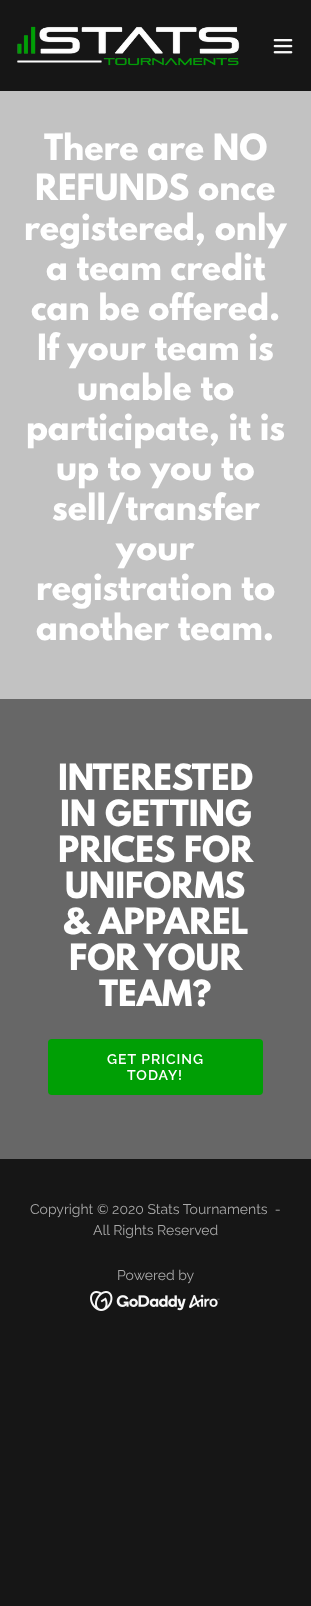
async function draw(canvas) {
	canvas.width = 311;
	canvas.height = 1606;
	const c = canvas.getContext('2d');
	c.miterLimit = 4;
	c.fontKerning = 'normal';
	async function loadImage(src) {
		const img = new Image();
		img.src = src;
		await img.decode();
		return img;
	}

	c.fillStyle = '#161616';
	c.fillRect(0, 0, 311, 1606);
	c.drawImage(await loadImage('img1.png'), 17, 26, 223, 40);
	c.drawImage(await loadImage('img2.png'), 273, 39, 20, 15);
	c.fillStyle = '#c2c2c2';
	c.fillRect(0, 91, 311, 608);
	c.font = 'bold 32px League Spartan';
	c.fillStyle = '#fff';
	for (const [text, x, y] of [
		['There are NO', 44, 160],
		['REFUNDS once', 35, 200],
		['registered, only', 24, 240],
		['a team credit', 46, 280],
		['can be offered.', 31, 320],
		['If your team is', 37, 360],
		['unable to', 77, 400],
		['participate, it is', 26, 440],
		['up to you to', 56, 480],
		['sell/transfer', 52, 520],
		['your', 116, 560],
		['registration to', 36, 600],
		['another team.', 36, 640],
	]) {
		c.fillText(text, x, y);
	}
	c.fillStyle = '#676767';
	c.fillRect(0, 699, 311, 460);
	c.fillStyle = '#fff';
	for (const [text, x, y] of [
		['INTERESTED', 58, 790],
		['IN GETTING', 60, 826],
		['PRICES FOR', 58, 862],
		['UNIFORMS', 65, 898],
		['& APPAREL', 63, 934],
		['FOR YOUR', 69, 970],
		['TEAM?', 99, 1006],
	]) {
		c.fillText(text, x, y);
	}
	c.fillStyle = '#009f05';
	c.beginPath();
	c.roundRect(48, 1039, 215, 56, 4);
	c.fill();
	c.letterSpacing = '1px';
	c.font = '600 14px Raleway';
	c.fillStyle = '#fff';
	c.fillText('GET PRICING', 107, 1064);
	c.fillText('TODAY!', 127, 1080);
	c.letterSpacing = '0px';
	c.font = '14px Raleway';
	c.fillStyle = '#a9a9a9';
	for (const [text, x, y] of [
		['Copyright © 2020 Stats Tournaments  -', 30, 1214],
		['All Rights Reserved', 93, 1235],
		['Powered by', 117, 1280],
	]) {
		c.fillText(text, x, y);
	}
	c.drawImage(await loadImage('img3.png'), 90, 1291, 130, 20);
}

draw(document.querySelector('canvas'));
